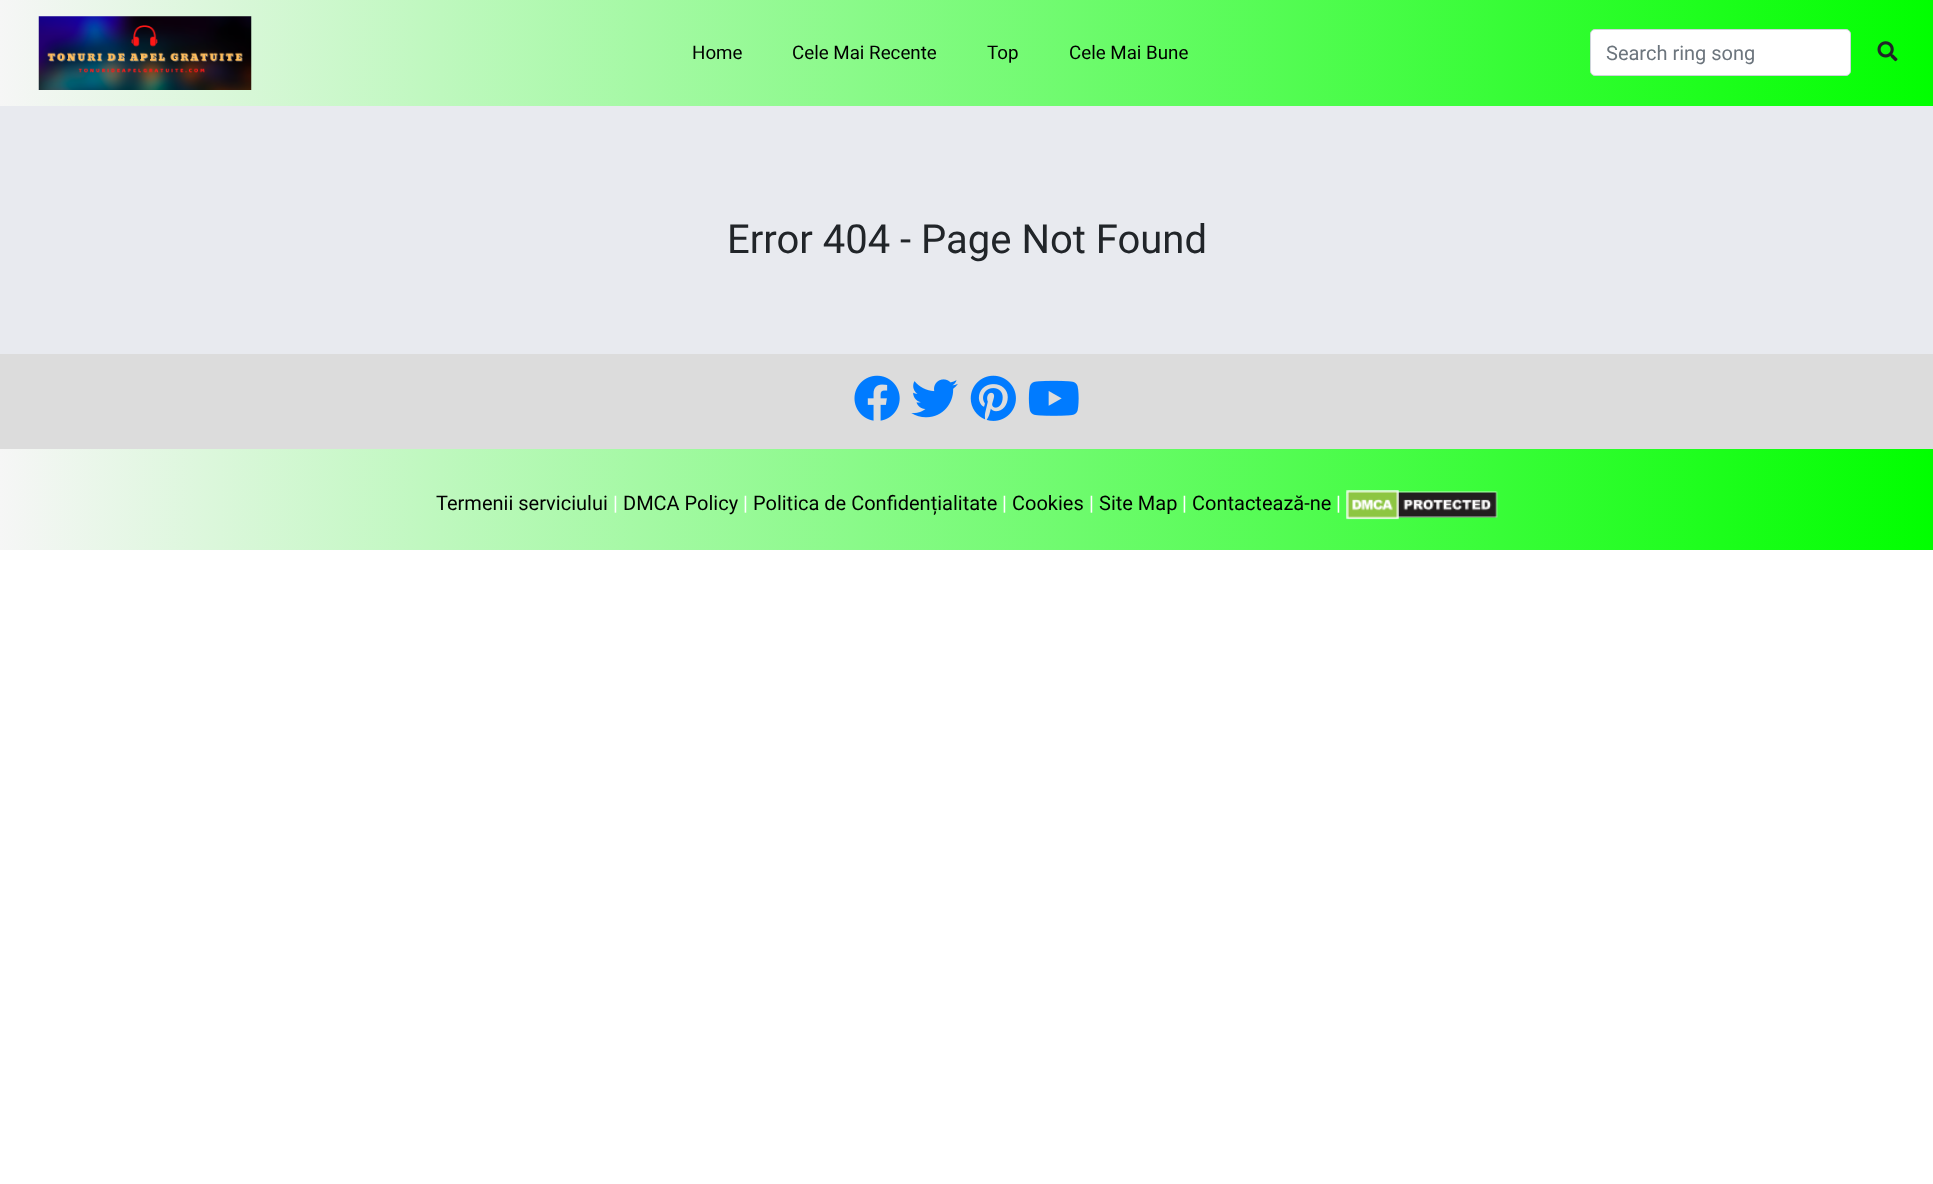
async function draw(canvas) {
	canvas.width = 1933;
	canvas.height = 1184;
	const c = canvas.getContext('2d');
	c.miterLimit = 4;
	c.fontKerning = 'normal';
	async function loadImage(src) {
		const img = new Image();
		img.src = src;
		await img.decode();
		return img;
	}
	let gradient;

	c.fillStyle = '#fff';
	c.fillRect(0, 0, 1933, 1184);
	gradient = c.createLinearGradient(0, 53, 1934, 53);
	gradient.addColorStop(0, '#f6f6f6');
	gradient.addColorStop(1, '#01ff00');
	gradient.addColorStop(1, '#0b810e');
	c.fillStyle = gradient;
	c.fillRect(0, 0, 1933, 106);
	c.drawImage(await loadImage('img1.png'), 38, 16, 214, 74);
	c.font = '18.75px Roboto';
	c.fillStyle = '#000';
	for (const [text, x, y] of [
		['Home', 692, 59],
		['Cele Mai Recente', 792, 59],
		['Top', 987, 59],
		['Cele Mai Bune', 1069, 59],
	]) {
		c.fillText(text, x, y);
	}
	c.fillStyle = '#fff';
	c.beginPath();
	c.roundRect(1590.5, 29.5, 260, 46, 4.5);
	c.fill();
	c.strokeStyle = '#ced4da';
	c.stroke();
	c.font = '20px Roboto';
	c.fillStyle = '#6c757d';
	c.fillText('Search ring song', 1606, 60);
	c.drawImage(await loadImage('img2.png'), 1877, 41, 21, 21);
	c.fillStyle = '#e8eaef';
	c.fillRect(0, 106, 1933, 248);
	c.font = '40px Roboto';
	c.fillStyle = '#212529';
	c.fillText('Error 404 - Page Not Found', 727, 253);
	gradient = c.createLinearGradient(0, 452, 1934, 452);
	gradient.addColorStop(0, '#f6f6f6');
	gradient.addColorStop(1, '#01ff00');
	gradient.addColorStop(1, '#0b810e');
	c.fillStyle = gradient;
	c.fillRect(0, 449, 1933, 101);
	c.fillStyle = '#dcdcdc';
	c.fillRect(0, 354, 1933, 95);
	c.drawImage(await loadImage('img3.png'), 854, 375, 46, 46);
	c.drawImage(await loadImage('img4.png'), 911, 379, 47, 39);
	c.drawImage(await loadImage('img5.png'), 970, 375, 46, 46);
	c.drawImage(await loadImage('img6.png'), 1028, 380, 51, 36);
	c.font = '20px Roboto';
	c.fillStyle = '#000';
	c.fillText('Termenii serviciului', 436, 510);
	c.fillStyle = '#fff';
	c.fillText('|', 613, 510);
	c.fillStyle = '#000';
	c.fillText('DMCA Policy', 623, 510);
	c.fillStyle = '#fff';
	c.fillText('|', 743, 510);
	c.fillStyle = '#000';
	c.fillText('Politica de Confidențialitate', 753, 510);
	c.fillStyle = '#fff';
	c.fillText('|', 1002, 510);
	c.fillStyle = '#000';
	c.fillText('Cookies', 1012, 510);
	c.fillStyle = '#fff';
	c.fillText('|', 1089, 510);
	c.fillStyle = '#000';
	c.fillText('Site Map', 1099, 510);
	c.fillStyle = '#fff';
	c.fillText('|', 1182, 510);
	c.fillStyle = '#000';
	c.fillText('Contactează-ne', 1192, 510);
	c.fillStyle = '#fff';
	c.fillText('|', 1336, 510);
	c.drawImage(await loadImage('img7.png'), 1346, 490, 152, 30);
}

draw(document.querySelector('canvas'));
